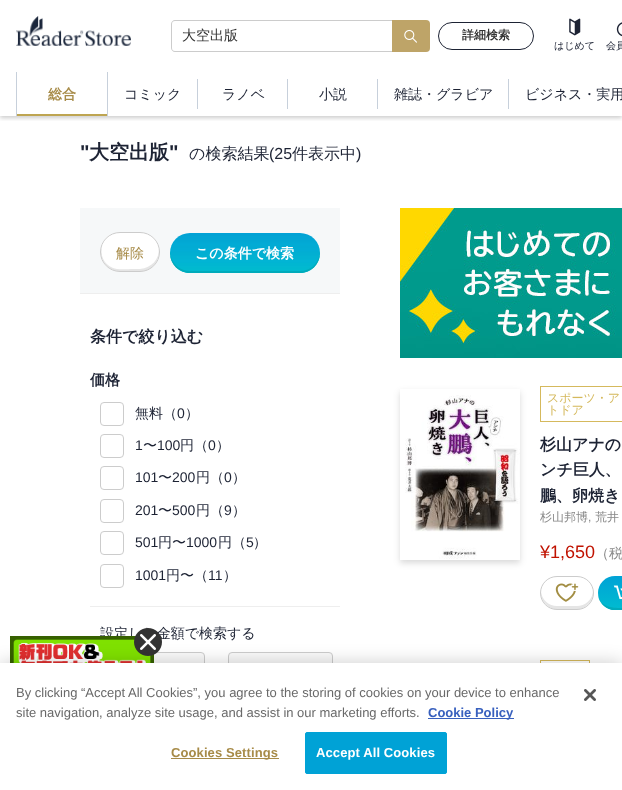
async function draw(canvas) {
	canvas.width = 622;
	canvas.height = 790;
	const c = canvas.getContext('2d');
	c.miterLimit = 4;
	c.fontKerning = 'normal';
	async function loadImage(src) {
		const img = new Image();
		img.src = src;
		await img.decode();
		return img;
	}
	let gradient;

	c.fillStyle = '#fff';
	c.fillRect(0, 0, 622, 790);
	c.save();
	c.beginPath();
	c.rect(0, 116, 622, 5);
	c.clip();
	c.fillStyle = '#00000033';
	c.filter = 'blur(2px)';
	c.beginPath();
	c.rect(0, 74, 622, 44);
	c.fill();
	c.filter = 'none';
	c.restore();
	c.fillRect(0, 71, 622, 1);
	c.drawImage(await loadImage('img1.png'), 16, 16, 115, 30);
	c.fillStyle = '#ccc';
	c.beginPath();
	c.moveTo(175, 20);
	c.lineTo(392, 20);
	c.lineTo(392, 52);
	c.lineTo(175, 52);
	c.bezierCurveTo(173, 52, 171, 50, 171, 48);
	c.lineTo(171, 24);
	c.bezierCurveTo(171, 22, 173, 20, 175, 20);
	c.closePath();
	c.moveTo(175, 21);
	c.lineTo(392, 21);
	c.lineTo(392, 51);
	c.lineTo(175, 51);
	c.bezierCurveTo(173, 51, 172, 50, 172, 48);
	c.lineTo(172, 24);
	c.bezierCurveTo(172, 22, 173, 21, 175, 21);
	c.closePath();
	c.fill('evenodd');
	c.font = '500 14px WenQuanYi Zen Hei';
	c.fillStyle = '#333';
	c.fillText('大空出版', 182, 40);
	c.fillStyle = '#bea468';
	c.beginPath();
	c.roundRect(392, 20, 38, 32, [0, 4, 4, 0]);
	c.fill();
	c.drawImage(await loadImage('img2.png'), 404, 29, 13, 14);
	c.beginPath();
	c.roundRect(438.5, 22.5, 95, 27, 13.5);
	c.strokeStyle = '#1d2334';
	c.stroke();
	c.font = 'bold 12px WenQuanYi Zen Hei';
	c.fillStyle = '#333';
	c.fillText('詳細検索', 462, 39);
	c.drawImage(await loadImage('img3.png'), 569, 18, 12, 18);
	c.font = '500 10px WenQuanYi Zen Hei';
	c.fillStyle = '#1d2334';
	c.fillText('はじめて', 554, 49);
	c.drawImage(await loadImage('img4.png'), 616, 22, 6, 15);
	c.fillText('会員', 606, 49);
	c.fillStyle = '#c7d0db';
	c.fillRect(107, 72, 1, 44);
	c.fillRect(16, 72, 1, 44);
	c.font = 'bold 14px WenQuanYi Zen Hei';
	c.fillStyle = '#a78b48';
	c.fillText('総合', 48, 99);
	c.fillStyle = '#bea551';
	c.fillRect(17, 114, 90, 2);
	c.font = '500 14px WenQuanYi Zen Hei';
	c.fillStyle = '#1d2334';
	c.fillText('コミック', 124, 99);
	c.fillStyle = '#c7d0db';
	c.fillRect(197, 79, 1, 30);
	c.fillStyle = '#1d2334';
	c.fillText('ラノベ', 222, 99);
	c.fillStyle = '#c7d0db';
	c.fillRect(287, 79, 1, 30);
	c.fillStyle = '#1d2334';
	c.fillText('小説', 319, 99);
	c.fillStyle = '#c7d0db';
	c.fillRect(377, 79, 1, 30);
	c.fillStyle = '#1d2334';
	c.fillText('雑誌・グラビア', 394, 99);
	c.fillStyle = '#c7d0db';
	c.fillRect(508, 79, 1, 30);
	c.fillStyle = '#1d2334';
	c.fillText('ビジネス・実用', 525, 99);
	c.font = 'bold 20px Liberation Sans';
	c.fillText('"', 80, 159);
	c.font = 'bold 20px WenQuanYi Zen Hei';
	c.fillText('大空出版', 89, 159);
	c.font = 'bold 20px Liberation Sans';
	c.fillText('"', 169, 159);
	c.font = '500 16px WenQuanYi Zen Hei';
	c.fillText('の検索結果', 189, 159);
	c.font = '16px Liberation Sans';
	c.fillText('(25', 269, 159);
	c.font = '500 16px WenQuanYi Zen Hei';
	c.fillText('件表示中', 292, 159);
	c.font = '16px Liberation Sans';
	c.fillText(')', 356, 159);
	c.fillStyle = '#f6f8f9';
	c.fillRect(80, 208, 260, 85);
	c.fillStyle = '#eee';
	c.fillRect(80, 293, 260, 1);
	c.fillStyle = '#fff';
	c.beginPath();
	c.roundRect(100, 232, 60, 40, 20);
	c.fill();
	c.fillStyle = '#e5e5e5';
	c.beginPath();
	c.moveTo(102, 246);
	c.bezierCurveTo(98, 256, 105, 268, 116, 271);
	c.lineTo(130, 271);
	c.lineTo(144, 271);
	c.bezierCurveTo(154, 269, 160, 259, 159, 249);
	c.bezierCurveTo(159, 259, 152, 268, 140, 269);
	c.lineTo(134, 269);
	c.bezierCurveTo(127, 269, 117, 270, 113, 268);
	c.bezierCurveTo(103, 264, 100, 254, 102, 246);
	c.closePath();
	c.fill();
	c.beginPath();
	c.roundRect(100.5, 232.5, 59, 39, 19.5);
	c.strokeStyle = '#ccc';
	c.stroke();
	c.font = '500 14px WenQuanYi Zen Hei';
	c.fillStyle = '#a78b48';
	c.fillText('解除', 116, 258);
	c.drawImage(await loadImage('img5.png'), 170, 233, 150, 40);
	c.fillStyle = '#00abbb';
	c.beginPath();
	c.moveTo(170, 252);
	c.lineTo(170, 253);
	c.bezierCurveTo(170, 264, 179, 273, 190, 273);
	c.lineTo(300, 273);
	c.bezierCurveTo(311, 273, 320, 264, 320, 253);
	c.lineTo(320, 252);
	c.bezierCurveTo(319, 263, 311, 271, 300, 271);
	c.lineTo(190, 271);
	c.bezierCurveTo(179, 271, 171, 263, 170, 252);
	c.closePath();
	c.fill();
	c.font = 'bold 14px WenQuanYi Zen Hei';
	c.fillStyle = '#fff';
	c.fillText('この条件で検索', 195, 258);
	c.font = 'bold 16px WenQuanYi Zen Hei';
	c.fillStyle = '#1d2334';
	c.fillText('条件で絞り込む', 90, 342);
	c.font = 'bold 15px WenQuanYi Zen Hei';
	c.fillText('価格', 90, 385);
	c.beginPath();
	c.roundRect(100.5, 402.5, 23, 23, 3.5);
	c.stroke();
	c.font = '500 14px WenQuanYi Zen Hei';
	c.fillText('無料（', 135, 418);
	c.font = '14px Liberation Sans';
	c.fillText('0', 177, 418);
	c.font = '500 14px WenQuanYi Zen Hei';
	c.fillText('）', 185, 418);
	c.beginPath();
	c.roundRect(100.5, 434.5, 23, 23, 3.5);
	c.stroke();
	c.font = '14px Liberation Sans';
	c.fillText('1', 135, 450);
	c.font = '500 14px WenQuanYi Zen Hei';
	c.fillText('〜', 143, 450);
	c.font = '14px Liberation Sans';
	c.fillText('100', 157, 450);
	c.font = '500 14px WenQuanYi Zen Hei';
	c.fillText('円（', 180, 450);
	c.font = '14px Liberation Sans';
	c.fillText('0', 208, 450);
	c.font = '500 14px WenQuanYi Zen Hei';
	c.fillText('）', 216, 450);
	c.beginPath();
	c.roundRect(100.5, 466.5, 23, 23, 3.5);
	c.stroke();
	c.font = '14px Liberation Sans';
	c.fillText('101', 135, 482);
	c.font = '500 14px WenQuanYi Zen Hei';
	c.fillText('〜', 158, 482);
	c.font = '14px Liberation Sans';
	c.fillText('200', 172, 482);
	c.font = '500 14px WenQuanYi Zen Hei';
	c.fillText('円（', 196, 482);
	c.font = '14px Liberation Sans';
	c.fillText('0', 224, 482);
	c.font = '500 14px WenQuanYi Zen Hei';
	c.fillText('）', 232, 482);
	c.beginPath();
	c.roundRect(100.5, 499.5, 23, 23, 3.5);
	c.stroke();
	c.font = '14px Liberation Sans';
	c.fillText('201', 135, 515);
	c.font = '500 14px WenQuanYi Zen Hei';
	c.fillText('〜', 158, 515);
	c.font = '14px Liberation Sans';
	c.fillText('500', 172, 515);
	c.font = '500 14px WenQuanYi Zen Hei';
	c.fillText('円（', 196, 515);
	c.font = '14px Liberation Sans';
	c.fillText('9', 224, 515);
	c.font = '500 14px WenQuanYi Zen Hei';
	c.fillText('）', 232, 515);
	c.beginPath();
	c.roundRect(100.5, 531.5, 23, 23, 3.5);
	c.stroke();
	c.font = '14px Liberation Sans';
	c.fillText('501', 135, 547);
	c.font = '500 14px WenQuanYi Zen Hei';
	c.fillText('円〜', 158, 547);
	c.font = '14px Liberation Sans';
	c.fillText('1000', 186, 547);
	c.font = '500 14px WenQuanYi Zen Hei';
	c.fillText('円（', 218, 547);
	c.font = '14px Liberation Sans';
	c.fillText('5', 246, 547);
	c.font = '500 14px WenQuanYi Zen Hei';
	c.fillText('）', 253, 547);
	c.beginPath();
	c.roundRect(100.5, 564.5, 23, 23, 3.5);
	c.stroke();
	c.font = '14px Liberation Sans';
	c.fillText('1001', 135, 580);
	c.font = '500 14px WenQuanYi Zen Hei';
	c.fillText('円〜（', 166, 580);
	c.font = '14px Liberation Sans';
	c.fillText('11', 208, 580);
	c.font = '500 14px WenQuanYi Zen Hei';
	c.fillText('）', 223, 580);
	c.fillStyle = '#eee';
	c.fillRect(90, 606, 250, 1);
	c.fillStyle = '#1d2334';
	c.fillText('設定した金額で検索する', 100, 638);
	c.fillStyle = '#f9f9f9';
	c.beginPath();
	c.roundRect(100.5, 652.5, 104, 26, 3.5);
	c.fill();
	c.stroke();
	c.beginPath();
	c.roundRect(228.5, 652.5, 104, 26, 3.5);
	c.fill();
	c.stroke();
	c.drawImage(await loadImage('img6.png'), 400, 208, 222, 150);
	c.save();
	c.beginPath();
	c.moveTo(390, 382);
	c.lineTo(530, 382);
	c.lineTo(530, 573);
	c.lineTo(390, 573);
	c.closePath();
	c.moveTo(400, 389);
	c.lineTo(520, 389);
	c.lineTo(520, 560);
	c.lineTo(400, 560);
	c.closePath();
	c.clip('evenodd');
	c.fillStyle = '#00000026';
	c.filter = 'blur(3px)';
	c.beginPath();
	c.rect(400, 392, 120, 171);
	c.fill();
	c.filter = 'none';
	c.restore();
	c.drawImage(await loadImage('img7.png'), 405, 395, 115, 164);
	c.strokeStyle = '#d5b95d';
	c.strokeRect(540.5, 386.5, 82, 35);
	c.font = '500 12px WenQuanYi Zen Hei';
	c.fillStyle = '#d5b95d';
	c.fillText('スポーツ・ア', 547, 402);
	c.fillText('トドア', 547, 414);
	c.font = 'bold 16px WenQuanYi Zen Hei';
	c.fillStyle = '#1d2334';
	for (const [text, x, y] of [
		['杉山アナの', 540, 450],
		['ンチ巨人、', 540, 475],
		['鵬、卵焼き', 540, 501],
	]) {
		c.fillText(text, x, y);
	}
	c.font = '500 12px WenQuanYi Zen Hei';
	c.fillStyle = '#888';
	c.fillText('杉山邦博', 540, 521);
	c.font = '12px Liberation Sans';
	c.fillText(',', 588, 521);
	c.font = '500 12px WenQuanYi Zen Hei';
	c.fillText('荒井', 595, 521);
	c.font = '18px Liberation Sans';
	c.fillStyle = '#c01200';
	c.fillText('¥1,650', 540, 558);
	c.font = '500 14px WenQuanYi Zen Hei';
	c.fillStyle = '#888';
	c.fillText('（税', 595, 558);
	c.fillStyle = '#e5e5e5';
	c.beginPath();
	c.moveTo(541, 592);
	c.bezierCurveTo(540, 599, 546, 607, 554, 609);
	c.lineTo(580, 609);
	c.bezierCurveTo(588, 607, 594, 599, 593, 592);
	c.bezierCurveTo(592, 600, 585, 606, 577, 606);
	c.lineTo(557, 606);
	c.bezierCurveTo(549, 606, 542, 600, 541, 592);
	c.closePath();
	c.fill();
	c.beginPath();
	c.roundRect(540.5, 576.5, 53, 33, 16.5);
	c.strokeStyle = '#ccc';
	c.stroke();
	c.drawImage(await loadImage('img8.png'), 555, 583, 24, 19);
	gradient = c.createLinearGradient(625, 576, 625, 610);
	gradient.addColorStop(0, '#00a2d6');
	gradient.addColorStop(1, '#00bcd0');
	c.fillStyle = gradient;
	c.beginPath();
	c.roundRect(598, 576, 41, 34, 17);
	c.fill();
	c.fillStyle = '#00abbb';
	c.beginPath();
	c.moveTo(598, 594);
	c.bezierCurveTo(598, 601, 604, 608, 612, 610);
	c.lineTo(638, 610);
	c.bezierCurveTo(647, 608, 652, 600, 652, 592);
	c.bezierCurveTo(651, 598, 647, 604, 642, 606);
	c.bezierCurveTo(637, 608, 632, 608, 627, 608);
	c.bezierCurveTo(615, 608, 600, 609, 598, 594);
	c.closePath();
	c.fill();
	c.drawImage(await loadImage('img9.png'), 613, 585, 9, 15);
	c.strokeStyle = '#d5b95d';
	c.strokeRect(540.5, 660.5, 49, 23);
	c.drawImage(await loadImage('img11.png'), 10, 636, 144, 27);
	c.drawImage(await loadImage('img10.png'), 134, 628, 28, 28);
	c.fillStyle = '#00000033';
	c.filter = 'blur(9px)';
	c.beginPath();
	c.rect(0, 663, 622, 127);
	c.fill();
	c.filter = 'none';
	c.fillStyle = '#fff';
	c.fillRect(0, 663, 622, 127);
	c.font = '13px Liberation Sans';
	c.fillStyle = '#696969';
	c.fillText('By clicking “Accept All Cookies”, you agree to the storing of cookies on your device to enhance', 16, 697);
	c.fillText('site navigation, analyze site usage, and assist in our marketing efforts.', 16, 717);
	c.fillStyle = '#3860be';
	c.fillRect(428, 718, 86, 1);
	c.font = 'bold 13px Liberation Sans';
	c.fillText('Cookie Policy', 428, 717);
	c.fillStyle = '#a78b48';
	c.fillRect(171, 758, 108, 1);
	c.letterSpacing = '0.1px';
	c.fillText('Cookies Settings', 171, 757);
	c.fillStyle = '#00a2d6';
	c.beginPath();
	c.roundRect(305.5, 732.5, 141, 41, 1.5);
	c.fill();
	c.strokeStyle = '#00a2d6';
	c.stroke();
	c.fillStyle = '#fff';
	c.fillText('Accept All Cookies', 316, 757);
	c.drawImage(await loadImage('img12.png'), 584, 689, 12, 12);
}

draw(document.querySelector('canvas'));
